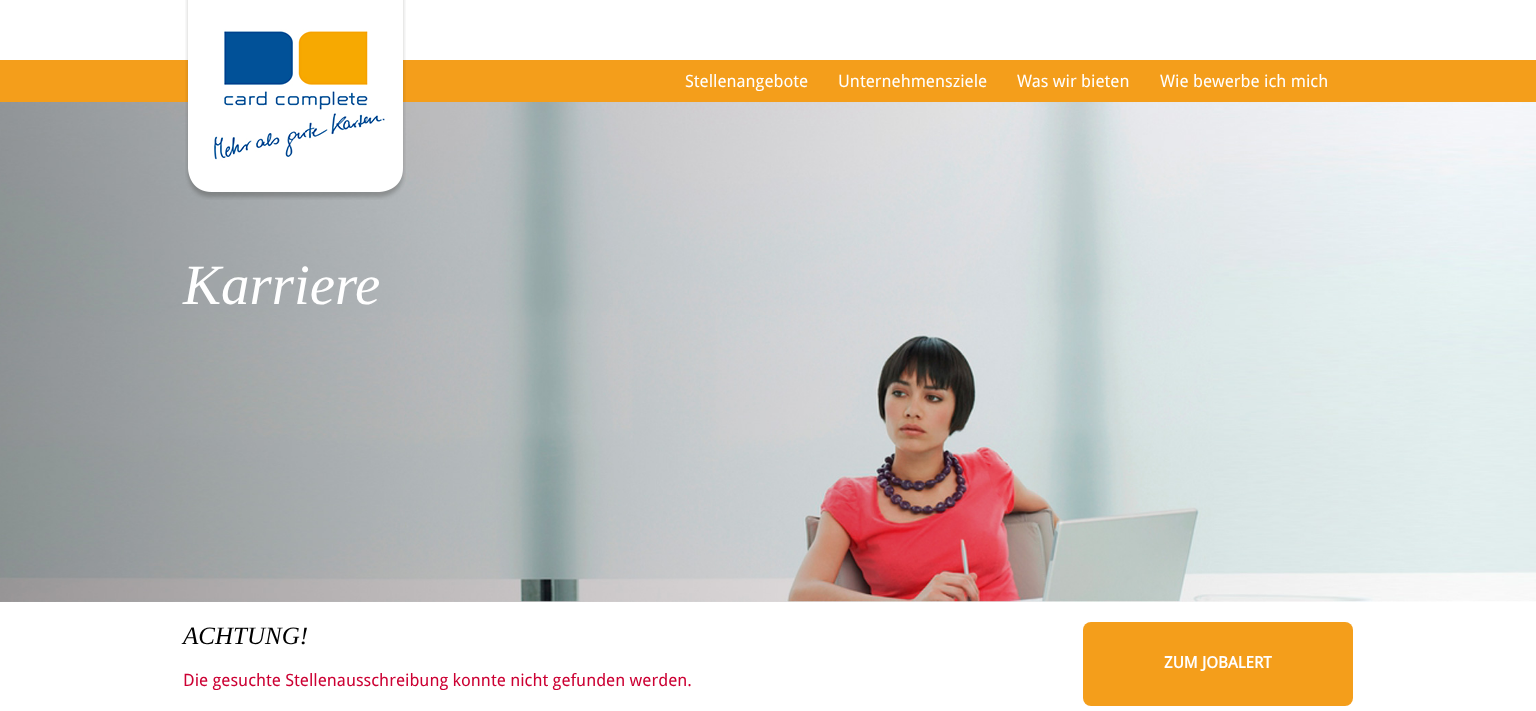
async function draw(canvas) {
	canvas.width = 1536;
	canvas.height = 711;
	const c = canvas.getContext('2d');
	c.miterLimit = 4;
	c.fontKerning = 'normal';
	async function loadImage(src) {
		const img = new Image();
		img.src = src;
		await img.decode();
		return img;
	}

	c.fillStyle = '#fff';
	c.fillRect(0, 0, 1536, 711);
	c.fillStyle = '#f49e1b';
	c.fillRect(0, 60, 1536, 42);
	c.drawImage(await loadImage('img2.png'), 0, 102, 1536, 500);
	c.drawImage(await loadImage('img1.png'), 185, 0, 221, 200);
	c.font = '17px Droid Sans';
	c.fillStyle = '#fff';
	for (const [text, x, y] of [
		['Stellenangebote', 685, 87],
		['Unternehmensziele', 838, 87],
		['Was wir bieten', 1017, 87],
		['Wie bewerbe ich mich', 1160, 87],
	]) {
		c.fillText(text, x, y);
	}
	c.font = 'italic 57px Liberation Serif';
	c.fillText('Karriere', 183, 304);
	c.font = 'italic 25px Liberation Serif';
	c.fillStyle = '#000';
	c.fillText('ACHTUNG!', 183, 644);
	c.fillStyle = '#f49e1b';
	c.beginPath();
	c.roundRect(1083, 622, 270, 84, 8);
	c.fill();
	c.font = 'bold 16px Droid Sans';
	c.fillStyle = '#fff';
	c.fillText('ZUM JOBALERT', 1164, 668);
	c.font = '17px Droid Sans';
	c.fillStyle = '#c03';
	c.fillText('Die gesuchte Stellenausschreibung konnte nicht gefunden werden.', 183, 686);
}

draw(document.querySelector('canvas'));
